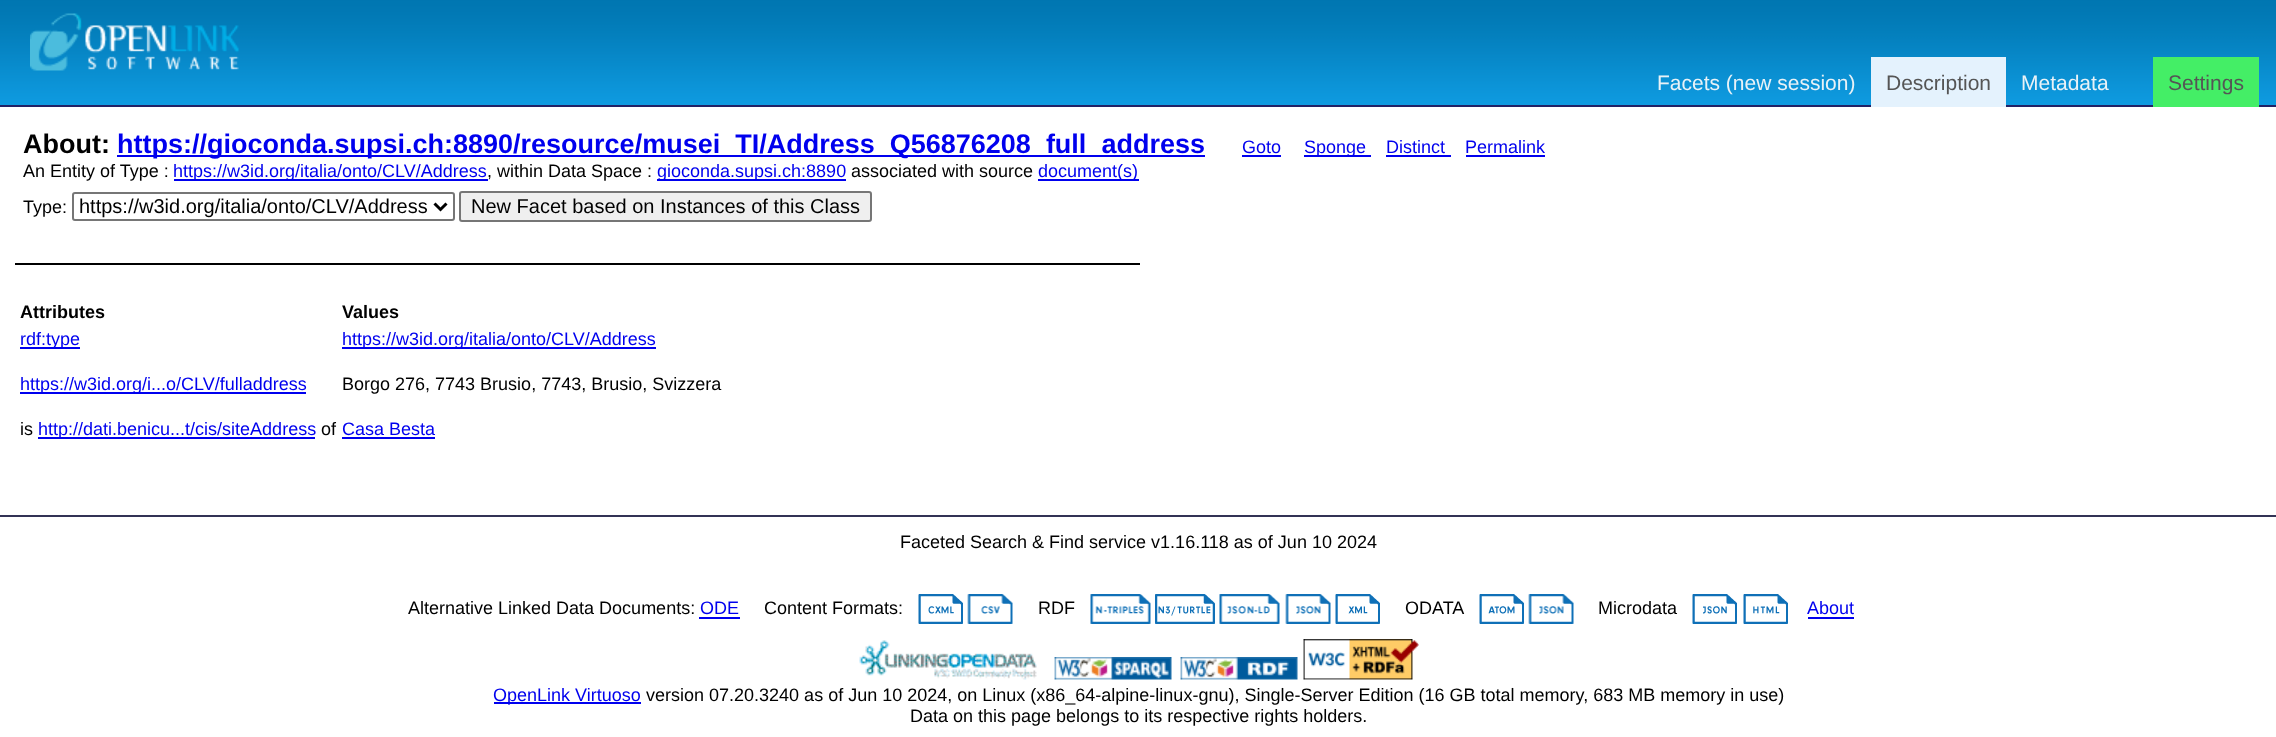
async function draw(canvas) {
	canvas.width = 2276;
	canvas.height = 737;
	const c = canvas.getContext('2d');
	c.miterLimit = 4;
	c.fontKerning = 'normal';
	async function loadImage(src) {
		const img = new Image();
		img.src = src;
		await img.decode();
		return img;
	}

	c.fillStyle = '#fff';
	c.fillRect(0, 0, 2276, 737);
	c.drawImage(await loadImage('img1.png'), 0, 0, 2276, 105);
	c.fillStyle = '#226';
	c.fillRect(0, 105, 2276, 2);
	c.drawImage(await loadImage('img2.png'), 30, 13, 209, 58);
	c.font = '21px Liberation Sans';
	c.fillStyle = '#e9f2f7';
	c.fillText('Facets (new session)', 1657, 90);
	c.fillStyle = '#e4f2fd';
	c.fillRect(1871, 57, 135, 50);
	c.fillStyle = '#555';
	c.fillText('Description', 1886, 90);
	c.fillStyle = '#e9f2f7';
	c.fillText('Metadata', 2021, 90);
	c.fillStyle = '#4e6';
	c.fillRect(2153, 57, 106, 50);
	c.fillStyle = '#555';
	c.fillText('Settings', 2168, 90);
	c.font = 'bold 27px Liberation Sans';
	c.fillStyle = '#000';
	c.fillText('About:', 23, 153);
	c.fillStyle = '#00e';
	c.fillRect(117, 155, 1088, 2);
	c.fillText('https://gioconda.supsi.ch:8890/resource/musei_TI/Address_Q56876208_full_address', 117, 153);
	c.font = '18px Liberation Sans';
	c.fillText('Goto', 1242, 153);
	c.fillRect(1242, 155, 39, 2);
	c.fillRect(1304, 155, 67, 2);
	c.fillText('Sponge', 1304, 153);
	c.fillText('Distinct', 1386, 153);
	c.fillRect(1386, 155, 65, 2);
	c.fillText('Permalink', 1465, 153);
	c.fillRect(1466, 155, 79, 2);
	c.fillStyle = '#000';
	c.fillText('An Entity of Type :', 23, 177);
	c.fillStyle = '#00e';
	c.fillRect(174, 179, 314, 2);
	c.fillText('https://w3id.org/italia/onto/CLV/Address', 173, 177);
	c.fillStyle = '#000';
	c.fillText(', within Data Space :', 487, 177);
	c.fillStyle = '#00e';
	c.fillRect(657, 179, 189, 2);
	c.fillText('gioconda.supsi.ch:8890', 657, 177);
	c.fillStyle = '#000';
	c.fillText('associated with source', 851, 177);
	c.fillStyle = '#00e';
	c.fillRect(1038, 179, 101, 2);
	c.fillText('document(s)', 1038, 177);
	c.fillStyle = '#000';
	c.fillText('Type:', 23, 213);
	c.beginPath();
	c.roundRect(73, 193, 381, 27, 2);
	c.strokeStyle = '#767676';
	c.lineWidth = 2;
	c.stroke();
	c.beginPath();
	c.moveTo(434.5, 203.5);
	c.lineTo(440.5, 209.5);
	c.lineTo(446.5, 203.5);
	c.strokeStyle = '#000';
	c.lineWidth = 3;
	c.stroke();
	c.font = '20px Liberation Sans';
	c.fillText('https://w3id.org/italia/onto/CLV/Address', 79, 213);
	c.fillStyle = '#efefef';
	c.beginPath();
	c.roundRect(460, 192, 411, 29, 2);
	c.fill();
	c.strokeStyle = '#767676';
	c.lineWidth = 2;
	c.stroke();
	c.fillStyle = '#000';
	c.fillText('New Facet based on Instances of this Class', 471, 213);
	c.fillRect(15, 263, 1125, 2);
	c.font = 'bold 18px Liberation Sans';
	c.fillText('Attributes', 20, 318);
	c.fillText('Values', 342, 318);
	c.fillStyle = '#00e';
	c.fillRect(20, 347, 60, 2);
	c.font = '18px Liberation Sans';
	c.fillText('rdf:type', 20, 345);
	c.fillRect(342, 347, 314, 2);
	c.fillText('https://w3id.org/italia/onto/CLV/Address', 342, 345);
	c.fillRect(20, 392, 286, 2);
	c.fillText('https://w3id.org/i...o/CLV/fulladdress', 20, 390);
	c.fillStyle = '#000';
	c.fillText('Borgo 276, 7743 Brusio, 7743, Brusio, Svizzera', 342, 390);
	c.fillText('is', 20, 435);
	c.fillStyle = '#00e';
	c.fillRect(38, 437, 277, 2);
	c.fillText('http://dati.benicu...t/cis/siteAddress', 38, 435);
	c.fillStyle = '#000';
	c.fillText('of', 321, 435);
	c.fillStyle = '#00e';
	c.fillText('Casa Besta', 342, 435);
	c.fillRect(342, 437, 93, 2);
	c.fillStyle = '#335';
	c.fillRect(0, 515, 2276, 2);
	c.fillStyle = '#000';
	c.fillText('Faceted Search & Find service v1.16.118 as of Jun 10 2024', 900, 548);
	c.fillText('Alternative Linked Data Documents:', 408, 614);
	c.fillStyle = '#00e';
	c.fillText('ODE', 700, 614);
	c.fillRect(699, 617, 41, 2);
	c.fillStyle = '#000';
	c.fillText('Content Formats:', 764, 614);
	c.drawImage(await loadImage('img3.png'), 918, 594, 45, 30);
	c.drawImage(await loadImage('img4.png'), 967, 594, 46, 30);
	c.fillText('RDF', 1038, 614);
	c.drawImage(await loadImage('img5.png'), 1090, 594, 61, 30);
	c.drawImage(await loadImage('img6.png'), 1155, 594, 60, 30);
	c.drawImage(await loadImage('img7.png'), 1219, 594, 61, 30);
	c.drawImage(await loadImage('img8.png'), 1285, 594, 46, 30);
	c.drawImage(await loadImage('img9.png'), 1335, 594, 45, 30);
	c.fillText('ODATA', 1405, 614);
	c.drawImage(await loadImage('img10.png'), 1479, 594, 45, 30);
	c.drawImage(await loadImage('img8.png'), 1528, 594, 46, 30);
	c.fillText('Microdata', 1598, 614);
	c.drawImage(await loadImage('img11.png'), 1692, 594, 45, 30);
	c.drawImage(await loadImage('img12.png'), 1743, 594, 45, 30);
	c.fillStyle = '#00e';
	c.fillText('About', 1807, 614);
	c.fillRect(1808, 617, 46, 2);
	c.drawImage(await loadImage('img13.png'), 859, 640, 178, 40);
	c.drawImage(await loadImage('img14.png'), 1054, 657, 118, 23);
	c.drawImage(await loadImage('img15.png'), 1180, 657, 118, 23);
	c.drawImage(await loadImage('img16.png'), 1303, 639, 116, 41);
	c.fillRect(494, 702, 147, 2);
	c.fillText('OpenLink Virtuoso', 493, 701);
	c.fillStyle = '#000';
	c.fillText('version 07.20.3240 as of Jun 10 2024, on Linux (x86_64-alpine-linux-gnu), Single-Server Edition (16 GB total memory, 683 MB memory in use)', 646, 701);
	c.fillText('Data on this page belongs to its respective rights holders.', 910, 722);
}

draw(document.querySelector('canvas'));
